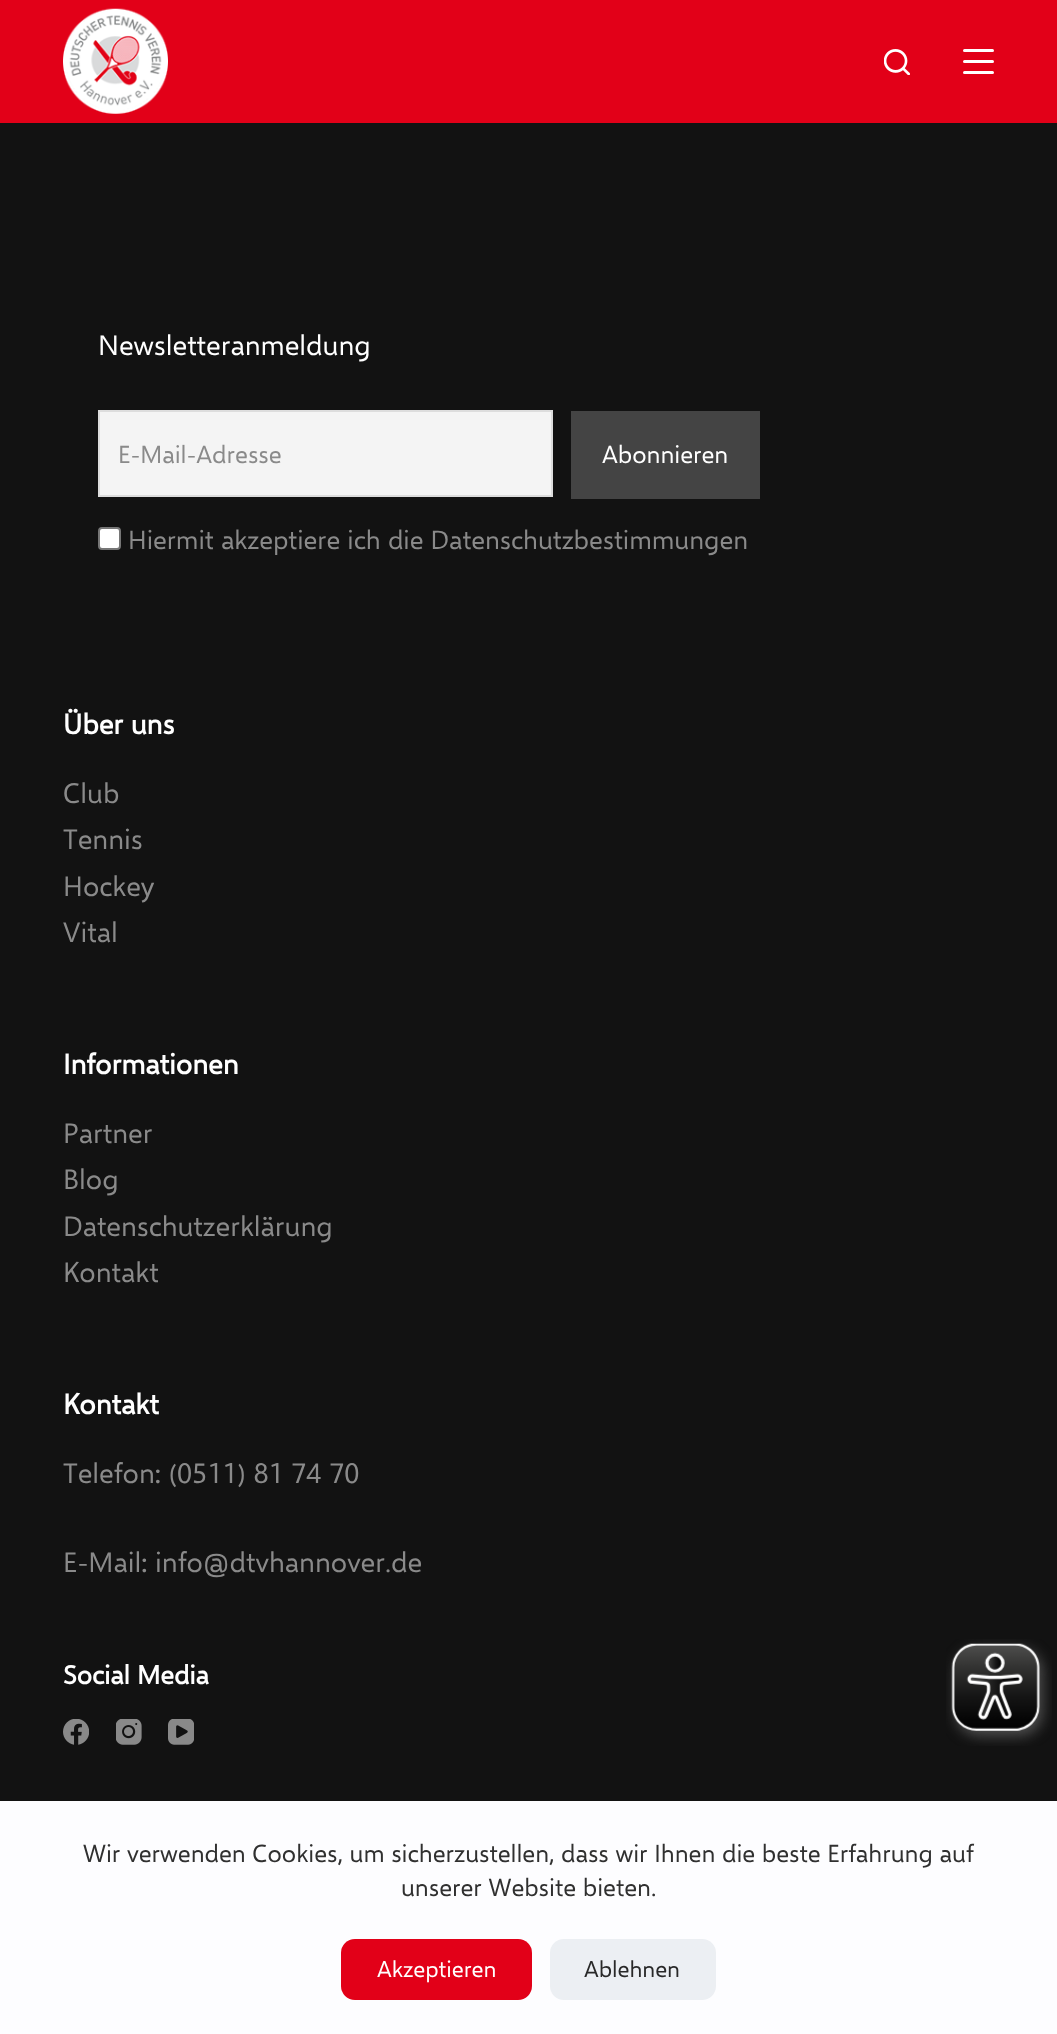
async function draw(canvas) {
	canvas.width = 1057;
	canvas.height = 2034;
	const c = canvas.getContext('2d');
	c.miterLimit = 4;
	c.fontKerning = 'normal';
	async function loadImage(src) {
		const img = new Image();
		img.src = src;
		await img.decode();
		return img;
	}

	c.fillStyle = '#121212';
	c.fillRect(0, 0, 1057, 2034);
	c.fillStyle = '#e20018';
	c.fillRect(0, 0, 1057, 123);
	c.drawImage(await loadImage('img1.png'), 63, 8, 105, 106);
	c.drawImage(await loadImage('img2.png'), 884, 49, 26, 26);
	c.fillStyle = '#fff';
	c.beginPath();
	c.roundRect(963, 49, 31, 3, 1.5);
	c.fill();
	c.beginPath();
	c.roundRect(963, 60, 31, 3, 1.5);
	c.fill();
	c.beginPath();
	c.roundRect(963, 71, 31, 3, 1.5);
	c.fill();
	c.font = '28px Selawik';
	c.fillText('Newsletteranmeldung', 98, 355);
	c.fillStyle = '#f4f4f4';
	c.beginPath();
	c.rect(99, 411, 453, 85);
	c.fill();
	c.strokeStyle = '#ddd';
	c.lineWidth = 2;
	c.stroke();
	c.font = '24.5px Selawik';
	c.fillStyle = '#8a8a8a';
	c.fillText('E-Mail-Adresse', 118, 463);
	c.fillStyle = '#444';
	c.fillRect(571, 411, 189, 88);
	c.fillStyle = '#fff';
	c.fillText('Abonnieren', 602, 463);
	c.beginPath();
	c.roundRect(99, 528, 21, 21, 3);
	c.fill();
	c.strokeStyle = '#767676';
	c.stroke();
	c.font = '26.25px Selawik';
	c.fillStyle = '#8a8a8a';
	c.fillText('Hiermit akzeptiere ich die Datenschutzbestimmungen', 128, 549);
	c.font = 'bold 28px Selawik';
	c.fillStyle = '#fff';
	c.fillText('Über uns', 63, 734);
	c.font = '28px Selawik';
	c.fillStyle = '#8a8a8a';
	for (const [text, x, y] of [
		['Club', 63, 803],
		['Tennis', 63, 849],
		['Hockey', 63, 896],
		['Vital', 63, 942],
	]) {
		c.fillText(text, x, y);
	}
	c.font = 'bold 28px Selawik';
	c.fillStyle = '#fff';
	c.fillText('Informationen', 63, 1074);
	c.font = '28px Selawik';
	c.fillStyle = '#8a8a8a';
	for (const [text, x, y] of [
		['Partner', 63, 1143],
		['Blog', 63, 1189],
		['Datenschutzerklärung', 63, 1236],
		['Kontakt', 63, 1282],
	]) {
		c.fillText(text, x, y);
	}
	c.font = 'bold 28px Selawik';
	c.fillStyle = '#fff';
	c.fillText('Kontakt', 63, 1414);
	c.font = '28px Selawik';
	c.fillStyle = '#8a8a8a';
	c.fillText('Telefon: (0511) 81 74 70', 63, 1483);
	c.fillText('E-Mail: info@dtvhannover.de', 63, 1572);
	c.font = 'bold 26px Selawik';
	c.fillStyle = '#fff';
	c.fillText('Social Media', 63, 1684);
	c.drawImage(await loadImage('img3.png'), 63, 1719, 26, 26);
	c.drawImage(await loadImage('img4.png'), 116, 1719, 26, 26);
	c.drawImage(await loadImage('img5.png'), 168, 1719, 26, 26);
	c.drawImage(await loadImage('img6.png'), 946, 1639, 106, 107);
	c.fillStyle = '#fdfdff';
	c.fillRect(0, 1801, 1057, 233);
	c.font = '24.5px Selawik';
	c.fillStyle = '#303030';
	c.fillText('Wir verwenden Cookies, um sicherzustellen, dass wir Ihnen die beste Erfahrung auf', 83, 1862);
	c.fillText('unserer Website bieten.', 401, 1896);
	c.fillStyle = '#e20018';
	c.beginPath();
	c.roundRect(341, 1939, 191, 61, 14);
	c.fill();
	c.font = '22.75px Selawik';
	c.fillStyle = '#fff';
	c.fillText('Akzeptieren', 377, 1977);
	c.fillStyle = '#eceff3';
	c.beginPath();
	c.roundRect(550, 1939, 166, 61, 14);
	c.fill();
	c.fillStyle = '#292929';
	c.fillText('Ablehnen', 584, 1977);
}

draw(document.querySelector('canvas'));
